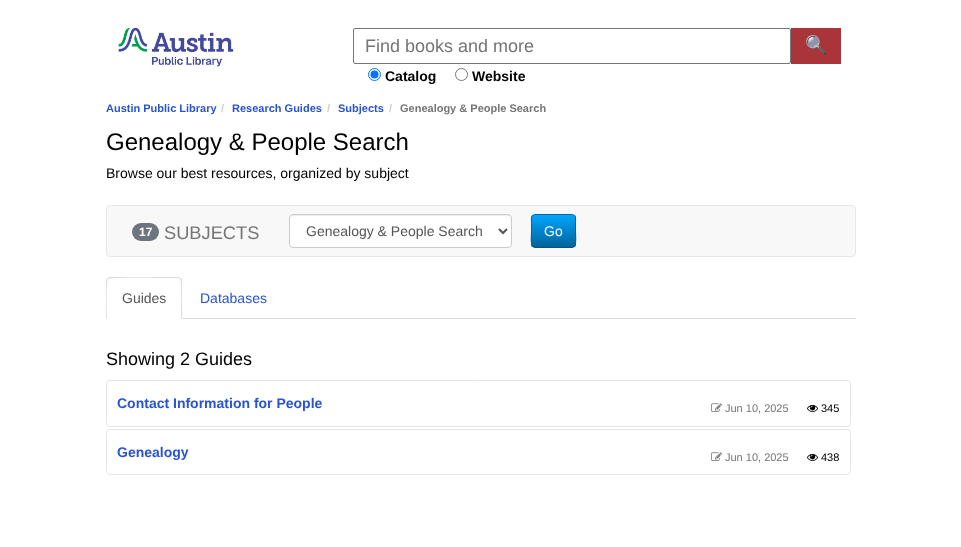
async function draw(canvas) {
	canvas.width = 961;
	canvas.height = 547;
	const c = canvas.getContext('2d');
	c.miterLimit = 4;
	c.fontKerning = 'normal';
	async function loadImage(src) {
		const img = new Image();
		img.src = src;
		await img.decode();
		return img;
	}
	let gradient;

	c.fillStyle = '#fff';
	c.fillRect(0, 0, 961, 547);
	c.drawImage(await loadImage('img1.png'), 118, 27, 116, 40);
	c.beginPath();
	c.roundRect(353.5, 28.5, 437, 35, 1.5);
	c.strokeStyle = '#767676';
	c.stroke();
	c.font = '18px Liberation Sans';
	c.fillStyle = '#757575';
	c.fillText('Find books and more', 365, 52);
	c.fillStyle = '#a93439';
	c.fillRect(791, 28, 50, 36);
	c.font = '18px Noto Color Emoji';
	c.fillStyle = '#fff';
	c.fillText('🔍', 805, 51);
	c.beginPath();
	c.arc(374.5, 74.5, 6, 0, 2 * Math.PI);
	c.strokeStyle = '#0075ff';
	c.stroke();
	c.fillStyle = '#0075ff';
	c.beginPath();
	c.arc(374.5, 74.5, 4, 0, 2 * Math.PI);
	c.fill();
	c.font = 'bold 14px Liberation Sans';
	c.fillStyle = '#000';
	c.fillText('Catalog', 385, 81);
	c.beginPath();
	c.arc(461.5, 74.5, 6, 0, 2 * Math.PI);
	c.strokeStyle = '#767676';
	c.stroke();
	c.fillText('Website', 472, 81);
	c.font = 'bold 11px Liberation Sans';
	c.fillStyle = '#2954d1';
	c.fillText('Austin Public Library', 106, 112);
	c.fillStyle = '#ccc';
	c.fillText('/', 221, 112);
	c.fillStyle = '#2954d1';
	c.fillText('Research Guides', 232, 112);
	c.fillStyle = '#ccc';
	c.fillText('/', 327, 112);
	c.fillStyle = '#2954d1';
	c.fillText('Subjects', 338, 112);
	c.fillStyle = '#ccc';
	c.fillText('/', 389, 112);
	c.fillStyle = '#757575';
	c.fillText('Genealogy & People Search', 400, 112);
	c.font = '24px Liberation Sans';
	c.fillStyle = '#000';
	c.fillText('Genealogy & People Search', 106, 150);
	c.font = '14px Liberation Sans';
	c.fillText('Browse our best resources, organized by subject', 106, 178);
	c.fillStyle = '#f8f8f8';
	c.beginPath();
	c.roundRect(106.5, 205.5, 749, 51, 3.5);
	c.fill();
	c.strokeStyle = '#e7e7e7';
	c.stroke();
	c.fillStyle = '#6c757d';
	c.beginPath();
	c.roundRect(132, 223, 27, 18, 9);
	c.fill();
	c.font = 'bold 12px Liberation Sans';
	c.fillStyle = '#fff';
	c.fillText('17', 139, 236);
	c.font = '18.25px Liberation Sans';
	c.fillStyle = '#757575';
	c.fillText('SUBJECTS', 164, 239);
	c.fillStyle = '#fff';
	c.beginPath();
	c.roundRect(289, 214, 223, 34, 4);
	c.fill();
	c.fillStyle = '#ececec';
	c.beginPath();
	c.moveTo(293, 216);
	c.lineTo(508, 216);
	c.bezierCurveTo(510, 216, 511, 217, 511, 219);
	c.lineTo(511, 218);
	c.bezierCurveTo(511, 216, 510, 215, 508, 215);
	c.lineTo(293, 215);
	c.bezierCurveTo(291, 215, 290, 216, 290, 218);
	c.lineTo(290, 219);
	c.bezierCurveTo(290, 217, 291, 216, 293, 216);
	c.closePath();
	c.fill();
	c.beginPath();
	c.roundRect(289.5, 214.5, 222, 33, 3.5);
	c.strokeStyle = '#ccc';
	c.stroke();
	c.beginPath();
	c.moveTo(499, 229);
	c.lineTo(503, 233);
	c.lineTo(507, 229);
	c.strokeStyle = '#555';
	c.lineWidth = 2;
	c.stroke();
	c.font = '14px Liberation Sans';
	c.fillStyle = '#555';
	c.fillText('Genealogy & People Search', 306, 236);
	c.save();
	c.beginPath();
	c.roundRect(531, 214, 45, 34, 4);
	c.clip();
	gradient = c.createLinearGradient(554, 215, 554, 247);
	gradient.addColorStop(0, '#00a5ff');
	gradient.addColorStop(1, '#006399');
	c.fillStyle = gradient;
	c.fillRect(531, 215, 45, 32);
	c.restore();
	c.beginPath();
	c.moveTo(574.5, 246.5);
	c.bezierCurveTo(574, 247, 573, 247.5, 572, 247.5);
	c.lineTo(535, 247.5);
	c.bezierCurveTo(534, 247.5, 533, 247, 532.5, 246.5);
	c.strokeStyle = '#00527f';
	c.lineWidth = 1;
	c.stroke();
	c.beginPath();
	c.moveTo(532.5, 246.5);
	c.bezierCurveTo(530.5, 244, 531.5, 234, 531.5, 231);
	c.lineTo(531.5, 222.5);
	c.bezierCurveTo(531.5, 219.5, 530.5, 215.5, 534.5, 214.5);
	c.lineTo(572.5, 214.5);
	c.bezierCurveTo(576.5, 215.5, 575.5, 219.5, 575.5, 222.5);
	c.lineTo(575.5, 231);
	c.bezierCurveTo(575.5, 234, 576.5, 244, 574.5, 246.5);
	c.strokeStyle = '#006399';
	c.stroke();
	c.fillStyle = '#fff';
	c.fillText('Go', 544, 236);
	c.fillStyle = '#ddd';
	c.fillRect(182, 318, 674, 1);
	c.beginPath();
	c.moveTo(110, 277);
	c.lineTo(107, 278);
	c.lineTo(108, 279);
	c.bezierCurveTo(110, 277, 160, 278, 167, 278);
	c.lineTo(178, 278);
	c.lineTo(180, 279);
	c.lineTo(181, 278);
	c.lineTo(178, 277);
	c.closePath();
	c.fill();
	c.beginPath();
	c.moveTo(182, 319);
	c.lineTo(182, 281);
	c.bezierCurveTo(182, 280, 182, 279, 181, 278);
	c.lineTo(180, 279);
	c.bezierCurveTo(182, 281, 181, 313, 181, 318);
	c.closePath();
	c.fill();
	c.beginPath();
	c.moveTo(106, 319);
	c.lineTo(107, 318);
	c.bezierCurveTo(107, 313, 106, 281, 108, 279);
	c.lineTo(107, 278);
	c.lineTo(106, 281);
	c.closePath();
	c.fill();
	c.fillStyle = '#555';
	c.fillText('Guides', 122, 303);
	c.fillStyle = '#2954d1';
	c.fillText('Databases', 200, 303);
	c.font = '18px Liberation Sans';
	c.fillStyle = '#000';
	c.fillText('Showing 2 Guides', 106, 365);
	c.beginPath();
	c.roundRect(106.5, 380.5, 744, 46, 3.5);
	c.strokeStyle = '#e5e5e5';
	c.stroke();
	c.font = 'bold 14px Liberation Sans';
	c.fillStyle = '#2954d1';
	c.fillText('Contact Information for People', 117, 408);
	c.drawImage(await loadImage('img2.png'), 711, 403, 11, 9);
	c.font = '11px Liberation Sans';
	c.fillStyle = '#757575';
	c.fillText('Jun 10, 2025', 725, 412);
	c.drawImage(await loadImage('img3.png'), 807, 404, 11, 8);
	c.fillStyle = '#000';
	c.fillText('345', 821, 412);
	c.beginPath();
	c.roundRect(106.5, 429.5, 744, 45, 3.5);
	c.stroke();
	c.font = 'bold 14px Liberation Sans';
	c.fillStyle = '#2954d1';
	c.fillText('Genealogy', 117, 457);
	c.drawImage(await loadImage('img2.png'), 711, 452, 11, 9);
	c.font = '11px Liberation Sans';
	c.fillStyle = '#757575';
	c.fillText('Jun 10, 2025', 725, 461);
	c.drawImage(await loadImage('img3.png'), 807, 453, 11, 8);
	c.fillStyle = '#000';
	c.fillText('438', 821, 461);
}

draw(document.querySelector('canvas'));
